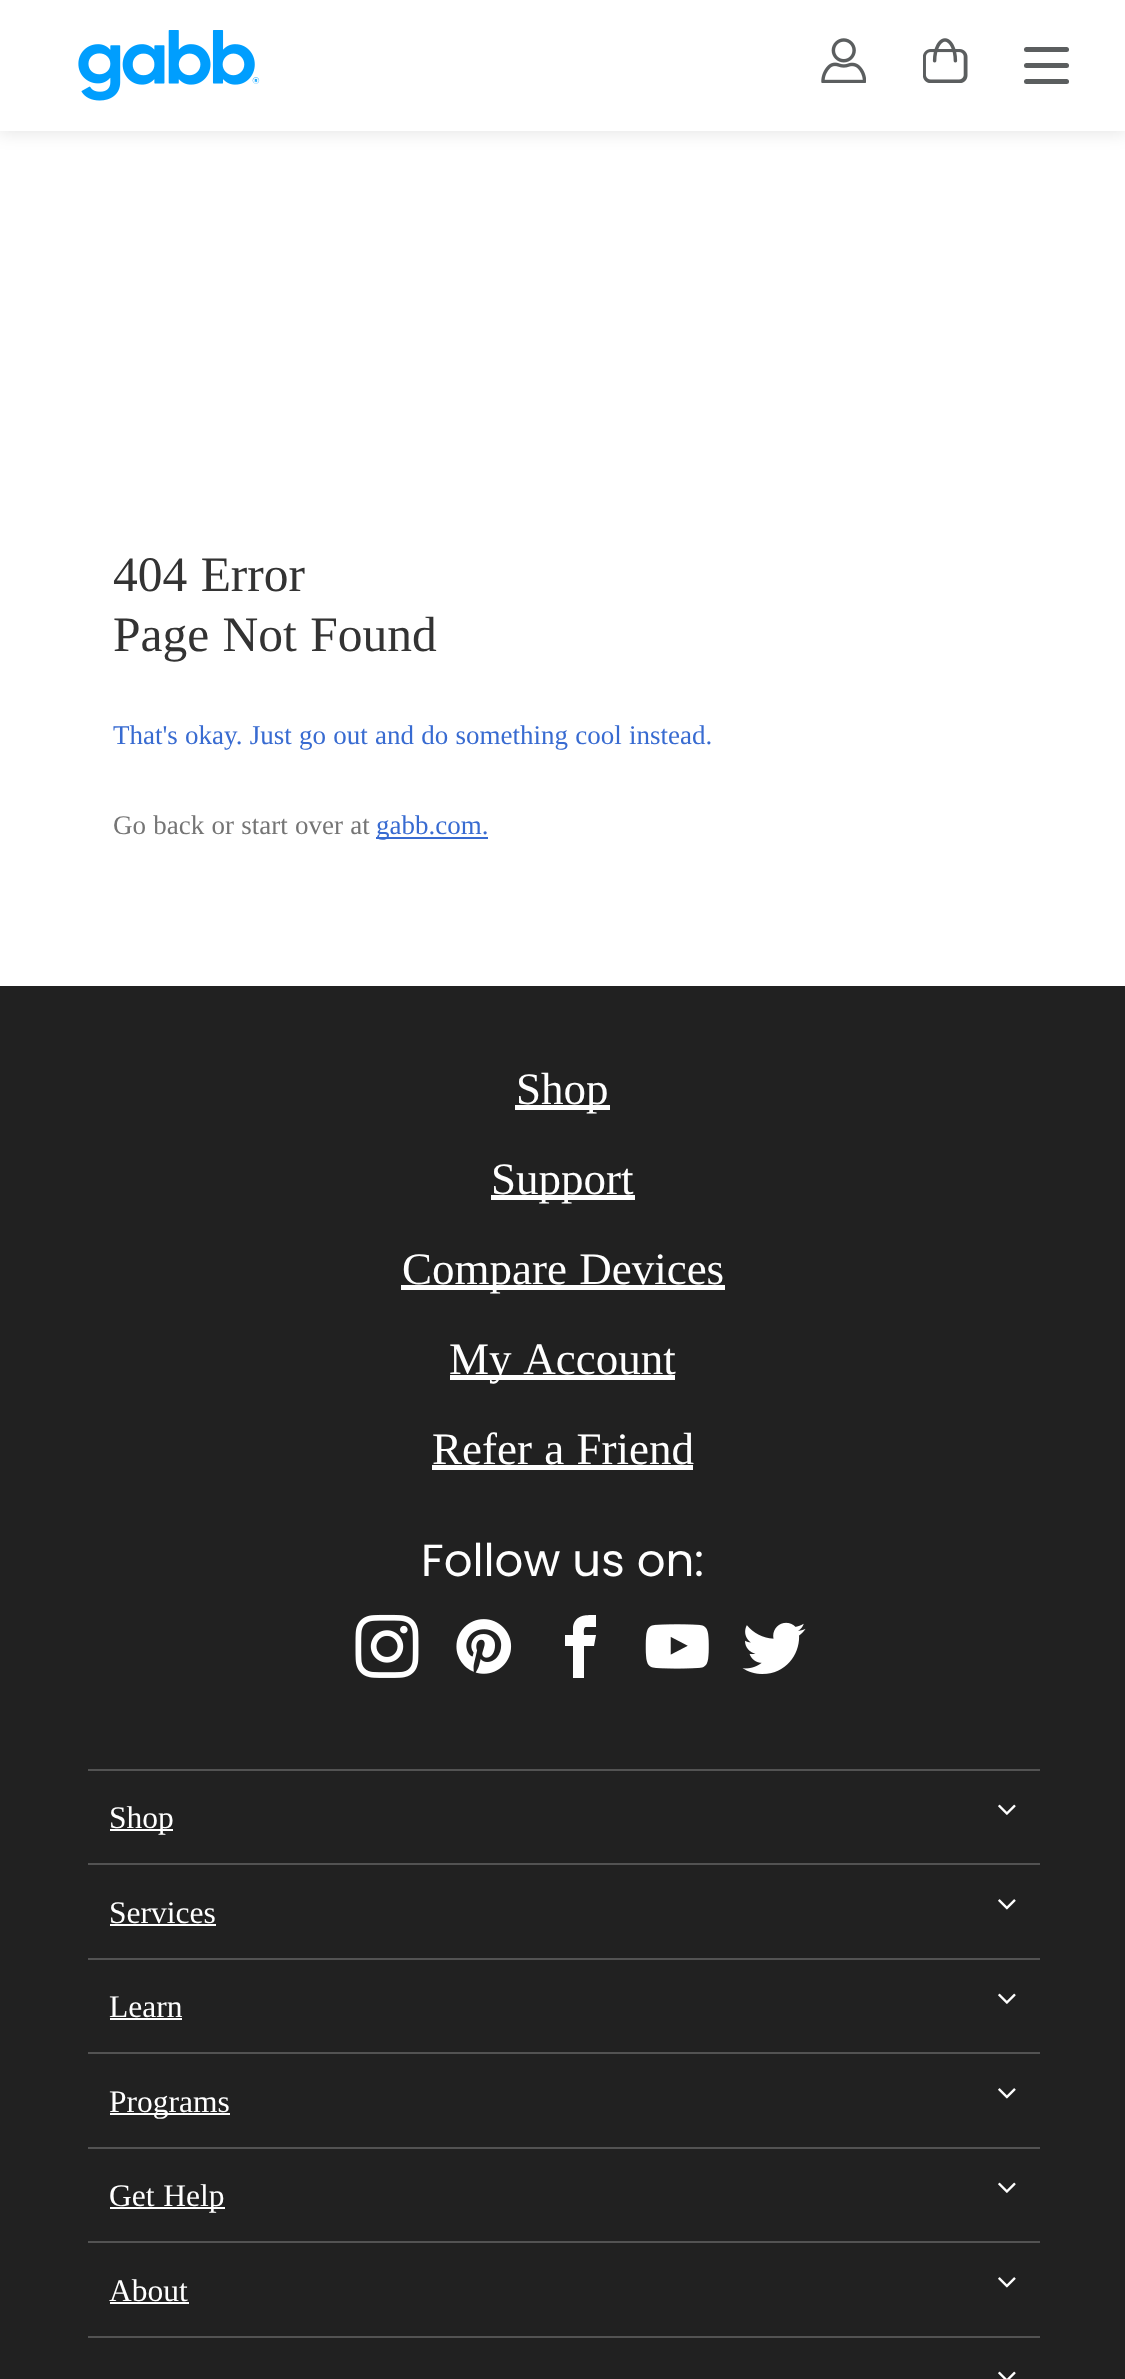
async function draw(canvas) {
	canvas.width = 1125;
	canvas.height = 2379;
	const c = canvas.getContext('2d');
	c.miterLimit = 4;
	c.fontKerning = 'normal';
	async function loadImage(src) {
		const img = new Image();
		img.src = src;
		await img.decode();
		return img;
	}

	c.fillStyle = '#fff';
	c.fillRect(0, 0, 1125, 2379);
	c.fillStyle = '#0000001a';
	c.filter = 'blur(9px)';
	c.beginPath();
	c.rect(-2, -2, 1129, 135);
	c.fill();
	c.filter = 'none';
	c.fillStyle = '#fff';
	c.fillRect(0, 0, 1125, 131);
	c.drawImage(await loadImage('img1.png'), 78, 30, 182, 71);
	c.drawImage(await loadImage('img2.png'), 821, 38, 45, 45);
	c.drawImage(await loadImage('img3.png'), 923, 38, 45, 45);
	c.fillStyle = '#5b5e5f';
	c.beginPath();
	c.roundRect(1024, 47, 45, 5, 2.5);
	c.fill();
	c.beginPath();
	c.roundRect(1024, 63, 45, 5, 2.5);
	c.fill();
	c.beginPath();
	c.roundRect(1024, 79, 45, 5, 2.5);
	c.fill();
	c.wordSpacing = '1px';
	c.font = '49.5px Liberation Serif';
	c.fillStyle = '#333';
	c.fillText('404 Error', 113, 591);
	c.fillText('Page Not Found', 113, 651);
	c.wordSpacing = '0.5px';
	c.font = '27px Liberation Serif';
	c.fillStyle = '#386bd1';
	c.fillText('That\'s okay. Just go out and do something cool instead.', 113, 744);
	c.fillStyle = '#757575';
	c.fillText('Go back or start over at', 113, 834);
	c.fillStyle = '#386bd1';
	c.fillRect(376, 837, 112, 2);
	c.wordSpacing = '0px';
	c.fillText('gabb.com.', 376, 834);
	c.fillStyle = '#212121';
	c.fillRect(0, 986, 1125, 1393);
	c.fillStyle = '#fff';
	c.fillRect(515, 1105, 95, 5);
	c.font = '45px Liberation Serif';
	c.fillText('Shop', 516, 1104);
	c.fillRect(491, 1195, 144, 5);
	c.fillText('Support', 491, 1194);
	c.fillRect(401, 1285, 324, 5);
	c.wordSpacing = '1px';
	c.fillText('Compare Devices', 402, 1284);
	c.fillRect(450, 1375, 225, 5);
	c.wordSpacing = '3px';
	c.fillText('My Account', 449, 1374);
	c.wordSpacing = '1px';
	c.fillText('Refer a Friend', 432, 1464);
	c.fillRect(432, 1465, 261, 5);
	c.wordSpacing = '0px';
	c.font = '45px Poppins';
	c.fillText('Follow us on:', 421, 1576);
	c.drawImage(await loadImage('img4.png'), 355, 1614, 64, 64);
	c.drawImage(await loadImage('img5.png'), 456, 1619, 56, 55);
	c.beginPath();
	c.moveTo(586, 1627);
	c.lineTo(596, 1627);
	c.lineTo(596, 1615);
	c.bezierCurveTo(587, 1615, 575, 1614, 573, 1627);
	c.lineTo(573, 1635);
	c.lineTo(565, 1635);
	c.lineTo(565, 1646);
	c.lineTo(573, 1646);
	c.lineTo(573, 1678);
	c.lineTo(584, 1678);
	c.lineTo(584, 1646);
	c.lineTo(594, 1646);
	c.lineTo(596, 1635);
	c.lineTo(584, 1635);
	c.bezierCurveTo(584, 1633, 583, 1627, 586, 1627);
	c.closePath();
	c.fill();
	c.drawImage(await loadImage('img6.png'), 645, 1624, 64, 45);
	c.drawImage(await loadImage('img7.png'), 742, 1622, 64, 52);
	c.fillStyle = '#535353';
	c.fillRect(88, 1769, 952, 2);
	c.fillStyle = '#fff';
	c.fillRect(110, 1829, 63, 2);
	c.font = '31.5px Liberation Serif';
	c.fillText('Shop', 109, 1828);
	c.drawImage(await loadImage('img8.png'), 998, 1804, 18, 11);
	c.fillStyle = '#535353';
	c.fillRect(88, 1863, 952, 2);
	c.fillStyle = '#fff';
	c.fillText('Services', 109, 1923);
	c.fillRect(110, 1924, 106, 2);
	c.drawImage(await loadImage('img9.png'), 998, 1899, 18, 11);
	c.fillStyle = '#535353';
	c.fillRect(88, 1958, 952, 2);
	c.fillStyle = '#fff';
	c.fillText('Learn', 109, 2017);
	c.fillRect(110, 2018, 72, 2);
	c.drawImage(await loadImage('img8.png'), 998, 1993, 18, 11);
	c.fillStyle = '#535353';
	c.fillRect(88, 2052, 952, 2);
	c.fillStyle = '#fff';
	c.fillRect(110, 2113, 120, 2);
	c.fillText('Programs', 109, 2112);
	c.drawImage(await loadImage('img9.png'), 998, 2088, 18, 11);
	c.fillStyle = '#535353';
	c.fillRect(88, 2147, 952, 2);
	c.fillStyle = '#fff';
	c.fillRect(110, 2207, 115, 2);
	c.wordSpacing = '1px';
	c.fillText('Get Help', 109, 2206);
	c.drawImage(await loadImage('img8.png'), 998, 2182, 18, 11);
	c.fillStyle = '#535353';
	c.fillRect(88, 2241, 952, 2);
	c.wordSpacing = '0px';
	c.fillStyle = '#fff';
	c.fillText('About', 109, 2301);
	c.fillRect(110, 2302, 79, 2);
	c.drawImage(await loadImage('img9.png'), 998, 2277, 18, 11);
	c.fillStyle = '#535353';
	c.fillRect(88, 2336, 952, 2);
	c.drawImage(await loadImage('img10.png'), 998, 2371, 18, 8);
}

draw(document.querySelector('canvas'));
